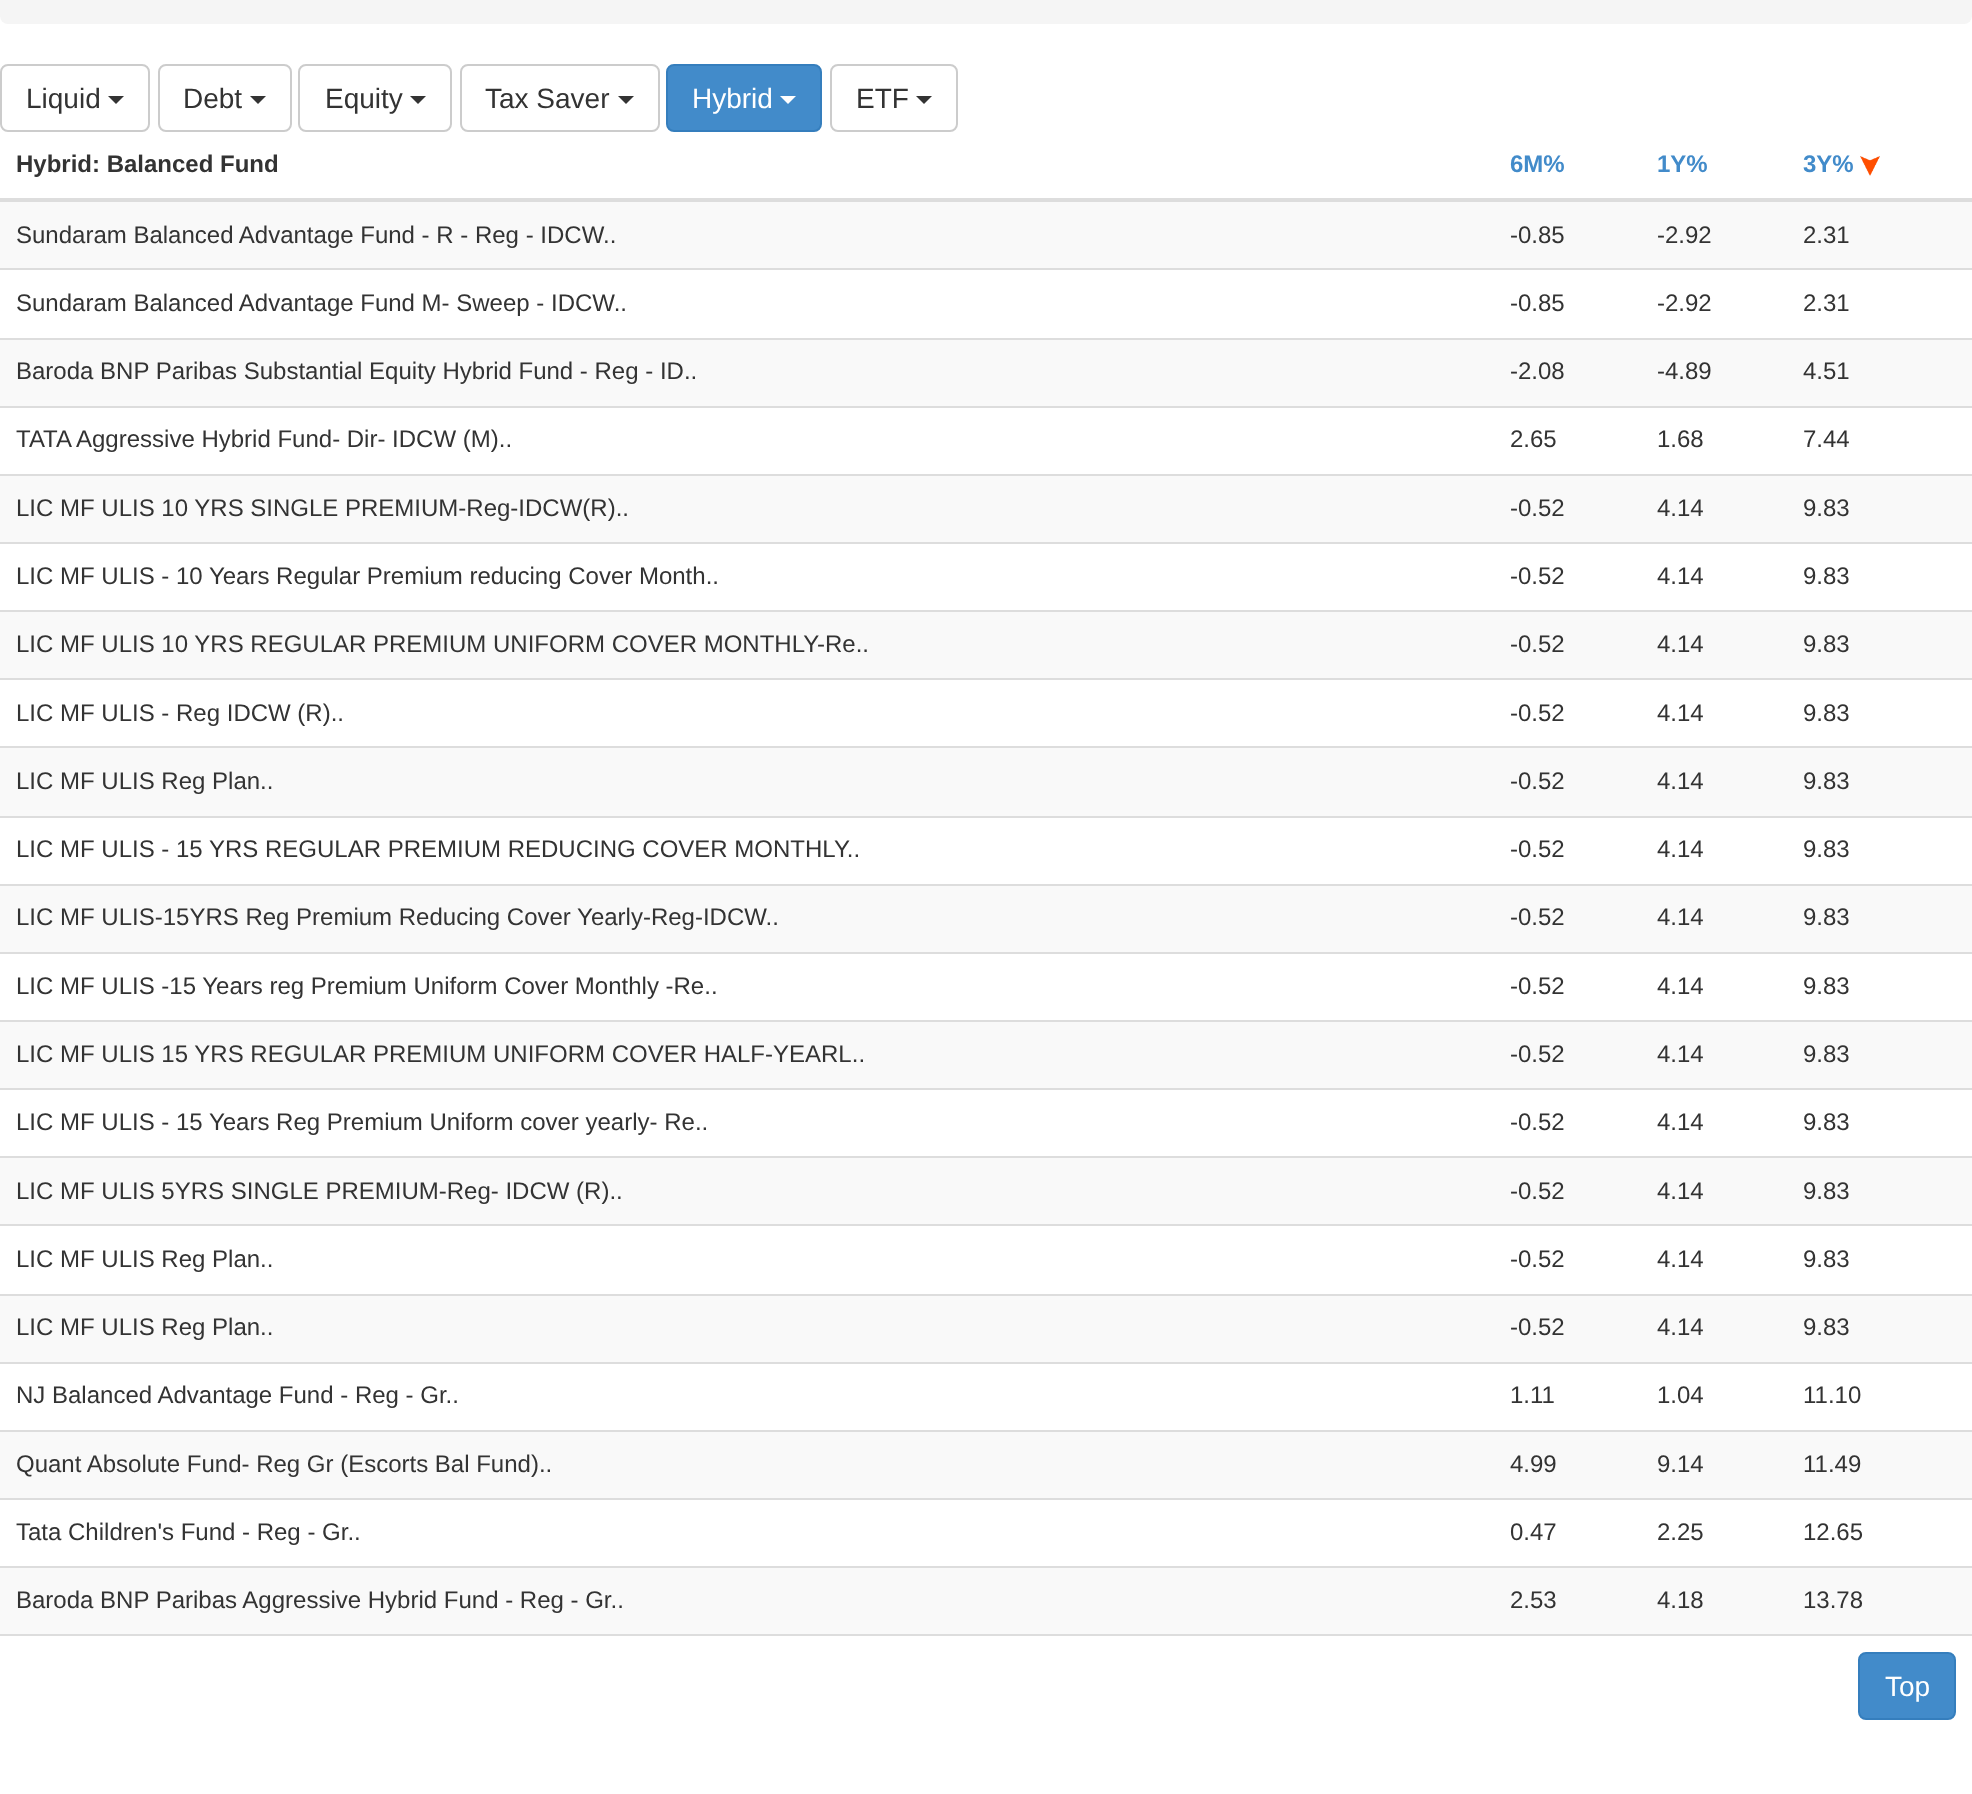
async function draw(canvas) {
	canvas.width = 1972;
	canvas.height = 1794;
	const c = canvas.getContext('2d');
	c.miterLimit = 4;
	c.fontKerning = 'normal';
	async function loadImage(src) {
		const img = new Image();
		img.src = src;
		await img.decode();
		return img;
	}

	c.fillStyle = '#fff';
	c.fillRect(0, 0, 1972, 1794);
	c.fillStyle = '#f5f5f5';
	c.beginPath();
	c.roundRect(0, -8, 1972, 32, 8);
	c.fill();
	c.beginPath();
	c.roundRect(1, 65, 148, 66, 7);
	c.strokeStyle = '#ccc';
	c.lineWidth = 2;
	c.stroke();
	c.font = '28px Liberation Sans';
	c.fillStyle = '#333';
	c.fillText('Liquid', 26, 108);
	c.beginPath();
	c.moveTo(108, 96);
	c.lineTo(124, 96);
	c.lineTo(116, 104);
	c.closePath();
	c.fill();
	c.beginPath();
	c.roundRect(159, 65, 132, 66, 7);
	c.stroke();
	c.fillText('Debt', 183, 108);
	c.beginPath();
	c.moveTo(250, 96);
	c.lineTo(266, 96);
	c.lineTo(258, 104);
	c.closePath();
	c.fill();
	c.beginPath();
	c.roundRect(299, 65, 152, 66, 7);
	c.stroke();
	c.fillText('Equity', 325, 108);
	c.beginPath();
	c.moveTo(410, 96);
	c.lineTo(426, 96);
	c.lineTo(418, 104);
	c.closePath();
	c.fill();
	c.beginPath();
	c.roundRect(461, 65, 198, 66, 7);
	c.stroke();
	c.fillText('Tax Saver', 485, 108);
	c.beginPath();
	c.moveTo(618, 96);
	c.lineTo(634, 96);
	c.lineTo(626, 104);
	c.closePath();
	c.fill();
	c.fillStyle = '#428bca';
	c.beginPath();
	c.roundRect(667, 65, 154, 66, 7);
	c.fill();
	c.strokeStyle = '#357ebd';
	c.stroke();
	c.fillStyle = '#fff';
	c.fillText('Hybrid', 692, 108);
	c.beginPath();
	c.moveTo(780, 96);
	c.lineTo(796, 96);
	c.lineTo(788, 104);
	c.closePath();
	c.fill();
	c.beginPath();
	c.roundRect(831, 65, 126, 66, 7);
	c.strokeStyle = '#ccc';
	c.stroke();
	c.fillStyle = '#333';
	c.fillText('ETF', 856, 108);
	c.beginPath();
	c.moveTo(916, 96);
	c.lineTo(932, 96);
	c.lineTo(924, 104);
	c.closePath();
	c.fill();
	c.font = 'bold 24px Liberation Sans';
	c.fillText('Hybrid: Balanced Fund', 16, 172);
	c.fillStyle = '#428bca';
	c.fillText('6M%', 1510, 172);
	c.fillText('1Y%', 1657, 172);
	c.fillStyle = '#ddd';
	c.fillRect(0, 198, 1972, 4);
	c.fillStyle = '#428bca';
	c.fillText('3Y%', 1803, 172);
	c.drawImage(await loadImage('img1.png'), 1860, 156, 20, 20);
	c.fillStyle = '#f9f9f9';
	c.fillRect(0, 202, 1972, 66);
	c.font = '24px Liberation Sans';
	c.fillStyle = '#333';
	for (const [text, x, y] of [
		['Sundaram Balanced Advantage Fund - R - Reg - IDCW..', 16, 243],
		['-0.85', 1510, 243],
		['-2.92', 1657, 243],
		['2.31', 1803, 243],
		['Sundaram Balanced Advantage Fund M- Sweep - IDCW..', 16, 311],
		['-0.85', 1510, 311],
		['-2.92', 1657, 311],
	]) {
		c.fillText(text, x, y);
	}
	c.fillStyle = '#ddd';
	c.fillRect(0, 268, 1972, 2);
	c.fillStyle = '#333';
	c.fillText('2.31', 1803, 311);
	c.fillStyle = '#f9f9f9';
	c.fillRect(0, 340, 1972, 66);
	c.fillStyle = '#333';
	for (const [text, x, y] of [
		['Baroda BNP Paribas Substantial Equity Hybrid Fund - Reg - ID..', 16, 379],
		['-2.08', 1510, 379],
		['-4.89', 1657, 379],
	]) {
		c.fillText(text, x, y);
	}
	c.fillStyle = '#ddd';
	c.fillRect(0, 338, 1972, 2);
	c.fillStyle = '#333';
	for (const [text, x, y] of [
		['4.51', 1803, 379],
		['TATA Aggressive Hybrid Fund- Dir- IDCW (M)..', 16, 447],
		['2.65', 1510, 447],
		['1.68', 1657, 447],
	]) {
		c.fillText(text, x, y);
	}
	c.fillStyle = '#ddd';
	c.fillRect(0, 406, 1972, 2);
	c.fillStyle = '#333';
	c.fillText('7.44', 1803, 447);
	c.fillStyle = '#f9f9f9';
	c.fillRect(0, 476, 1972, 66);
	c.fillStyle = '#333';
	for (const [text, x, y] of [
		['LIC MF ULIS 10 YRS SINGLE PREMIUM-Reg-IDCW(R)..', 16, 516],
		['-0.52', 1510, 516],
		['4.14', 1657, 516],
	]) {
		c.fillText(text, x, y);
	}
	c.fillStyle = '#ddd';
	c.fillRect(0, 474, 1972, 2);
	c.fillStyle = '#333';
	for (const [text, x, y] of [
		['9.83', 1803, 516],
		['LIC MF ULIS - 10 Years Regular Premium reducing Cover Month..', 16, 584],
		['-0.52', 1510, 584],
		['4.14', 1657, 584],
	]) {
		c.fillText(text, x, y);
	}
	c.fillStyle = '#ddd';
	c.fillRect(0, 542, 1972, 2);
	c.fillStyle = '#333';
	c.fillText('9.83', 1803, 584);
	c.fillStyle = '#f9f9f9';
	c.fillRect(0, 612, 1972, 66);
	c.fillStyle = '#333';
	for (const [text, x, y] of [
		['LIC MF ULIS 10 YRS REGULAR PREMIUM UNIFORM COVER MONTHLY-Re..', 16, 652],
		['-0.52', 1510, 652],
		['4.14', 1657, 652],
	]) {
		c.fillText(text, x, y);
	}
	c.fillStyle = '#ddd';
	c.fillRect(0, 610, 1972, 2);
	c.fillStyle = '#333';
	for (const [text, x, y] of [
		['9.83', 1803, 652],
		['LIC MF ULIS - Reg IDCW (R)..', 16, 721],
		['-0.52', 1510, 721],
		['4.14', 1657, 721],
	]) {
		c.fillText(text, x, y);
	}
	c.fillStyle = '#ddd';
	c.fillRect(0, 678, 1972, 2);
	c.fillStyle = '#333';
	c.fillText('9.83', 1803, 721);
	c.fillStyle = '#f9f9f9';
	c.fillRect(0, 748, 1972, 68);
	c.fillStyle = '#333';
	for (const [text, x, y] of [
		['LIC MF ULIS Reg Plan..', 16, 789],
		['-0.52', 1510, 789],
		['4.14', 1657, 789],
	]) {
		c.fillText(text, x, y);
	}
	c.fillStyle = '#ddd';
	c.fillRect(0, 746, 1972, 2);
	c.fillStyle = '#333';
	for (const [text, x, y] of [
		['9.83', 1803, 789],
		['LIC MF ULIS - 15 YRS REGULAR PREMIUM REDUCING COVER MONTHLY..', 16, 857],
		['-0.52', 1510, 857],
		['4.14', 1657, 857],
	]) {
		c.fillText(text, x, y);
	}
	c.fillStyle = '#ddd';
	c.fillRect(0, 816, 1972, 2);
	c.fillStyle = '#333';
	c.fillText('9.83', 1803, 857);
	c.fillStyle = '#f9f9f9';
	c.fillRect(0, 886, 1972, 66);
	c.fillStyle = '#333';
	for (const [text, x, y] of [
		['LIC MF ULIS-15YRS Reg Premium Reducing Cover Yearly-Reg-IDCW..', 16, 925],
		['-0.52', 1510, 925],
		['4.14', 1657, 925],
	]) {
		c.fillText(text, x, y);
	}
	c.fillStyle = '#ddd';
	c.fillRect(0, 884, 1972, 2);
	c.fillStyle = '#333';
	for (const [text, x, y] of [
		['9.83', 1803, 925],
		['LIC MF ULIS -15 Years reg Premium Uniform Cover Monthly -Re..', 16, 994],
		['-0.52', 1510, 994],
		['4.14', 1657, 994],
	]) {
		c.fillText(text, x, y);
	}
	c.fillStyle = '#ddd';
	c.fillRect(0, 952, 1972, 2);
	c.fillStyle = '#333';
	c.fillText('9.83', 1803, 994);
	c.fillStyle = '#f9f9f9';
	c.fillRect(0, 1022, 1972, 66);
	c.fillStyle = '#333';
	for (const [text, x, y] of [
		['LIC MF ULIS 15 YRS REGULAR PREMIUM UNIFORM COVER HALF-YEARL..', 16, 1062],
		['-0.52', 1510, 1062],
		['4.14', 1657, 1062],
	]) {
		c.fillText(text, x, y);
	}
	c.fillStyle = '#ddd';
	c.fillRect(0, 1020, 1972, 2);
	c.fillStyle = '#333';
	for (const [text, x, y] of [
		['9.83', 1803, 1062],
		['LIC MF ULIS - 15 Years Reg Premium Uniform cover yearly- Re..', 16, 1130],
		['-0.52', 1510, 1130],
		['4.14', 1657, 1130],
	]) {
		c.fillText(text, x, y);
	}
	c.fillStyle = '#ddd';
	c.fillRect(0, 1088, 1972, 2);
	c.fillStyle = '#333';
	c.fillText('9.83', 1803, 1130);
	c.fillStyle = '#f9f9f9';
	c.fillRect(0, 1158, 1972, 66);
	c.fillStyle = '#333';
	for (const [text, x, y] of [
		['LIC MF ULIS 5YRS SINGLE PREMIUM-Reg- IDCW (R)..', 16, 1199],
		['-0.52', 1510, 1199],
		['4.14', 1657, 1199],
	]) {
		c.fillText(text, x, y);
	}
	c.fillStyle = '#ddd';
	c.fillRect(0, 1156, 1972, 2);
	c.fillStyle = '#333';
	for (const [text, x, y] of [
		['9.83', 1803, 1199],
		['LIC MF ULIS Reg Plan..', 16, 1267],
		['-0.52', 1510, 1267],
		['4.14', 1657, 1267],
	]) {
		c.fillText(text, x, y);
	}
	c.fillStyle = '#ddd';
	c.fillRect(0, 1224, 1972, 2);
	c.fillStyle = '#333';
	c.fillText('9.83', 1803, 1267);
	c.fillStyle = '#f9f9f9';
	c.fillRect(0, 1296, 1972, 66);
	c.fillStyle = '#333';
	for (const [text, x, y] of [
		['LIC MF ULIS Reg Plan..', 16, 1335],
		['-0.52', 1510, 1335],
		['4.14', 1657, 1335],
	]) {
		c.fillText(text, x, y);
	}
	c.fillStyle = '#ddd';
	c.fillRect(0, 1294, 1972, 2);
	c.fillStyle = '#333';
	for (const [text, x, y] of [
		['9.83', 1803, 1335],
		['NJ Balanced Advantage Fund - Reg - Gr..', 16, 1403],
		['1.11', 1510, 1403],
		['1.04', 1657, 1403],
	]) {
		c.fillText(text, x, y);
	}
	c.fillStyle = '#ddd';
	c.fillRect(0, 1362, 1972, 2);
	c.fillStyle = '#333';
	c.fillText('11.10', 1803, 1403);
	c.fillStyle = '#f9f9f9';
	c.fillRect(0, 1432, 1972, 66);
	c.fillStyle = '#333';
	for (const [text, x, y] of [
		['Quant Absolute Fund- Reg Gr (Escorts Bal Fund)..', 16, 1472],
		['4.99', 1510, 1472],
		['9.14', 1657, 1472],
	]) {
		c.fillText(text, x, y);
	}
	c.fillStyle = '#ddd';
	c.fillRect(0, 1430, 1972, 2);
	c.fillStyle = '#333';
	for (const [text, x, y] of [
		['11.49', 1803, 1472],
		['Tata Children\'s Fund - Reg - Gr..', 16, 1540],
		['0.47', 1510, 1540],
		['2.25', 1657, 1540],
	]) {
		c.fillText(text, x, y);
	}
	c.fillStyle = '#ddd';
	c.fillRect(0, 1498, 1972, 2);
	c.fillStyle = '#333';
	c.fillText('12.65', 1803, 1540);
	c.fillStyle = '#f9f9f9';
	c.fillRect(0, 1568, 1972, 66);
	c.fillStyle = '#333';
	for (const [text, x, y] of [
		['Baroda BNP Paribas Aggressive Hybrid Fund - Reg - Gr..', 16, 1608],
		['2.53', 1510, 1608],
		['4.18', 1657, 1608],
	]) {
		c.fillText(text, x, y);
	}
	c.fillStyle = '#ddd';
	c.fillRect(0, 1566, 1972, 2);
	c.fillStyle = '#333';
	c.fillText('13.78', 1803, 1608);
	c.fillStyle = '#ddd';
	c.fillRect(0, 1634, 1972, 2);
	c.fillStyle = '#428bca';
	c.beginPath();
	c.roundRect(1859, 1653, 96, 66, 7);
	c.fill();
	c.strokeStyle = '#357ebd';
	c.stroke();
	c.font = '28px Liberation Sans';
	c.fillStyle = '#fff';
	c.fillText('Top', 1885, 1696);
}

draw(document.querySelector('canvas'));
